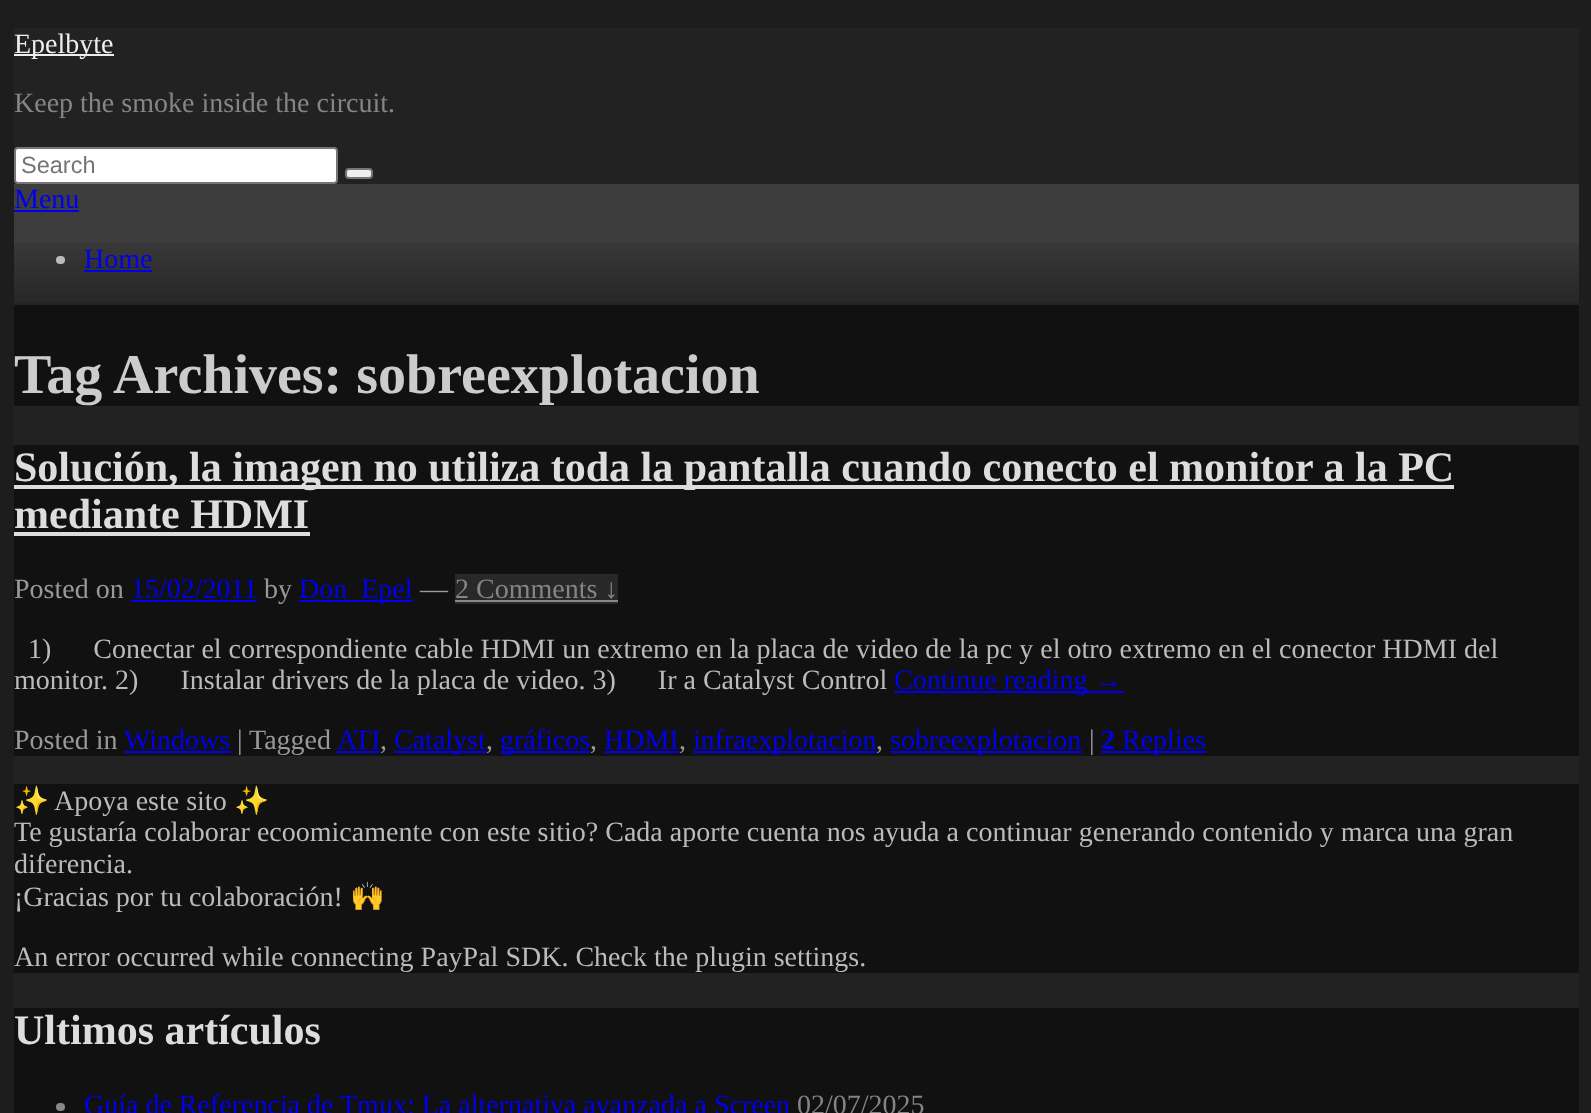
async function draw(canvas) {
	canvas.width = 1591;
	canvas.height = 1113;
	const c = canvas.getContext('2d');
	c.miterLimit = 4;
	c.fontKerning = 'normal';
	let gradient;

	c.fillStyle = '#1d1d1d';
	c.fillRect(0, 0, 1591, 1113);
	for (const [x, y, w, h, color] of [
		[14, 305, 1565, 101, '#111'],
		[14, 28, 1565, 156, '#222'],
		[14, 54, 100, 2, '#eee'],
	]) {
		c.fillStyle = color;
		c.fillRect(x, y, w, h);
	}
	c.font = '28px Liberation Serif';
	c.fillText('Epelbyte', 14, 53);
	c.fillStyle = '#858585';
	c.fillText('Keep the smoke inside the circuit.', 14, 112);
	c.fillStyle = '#fff';
	c.beginPath();
	c.roundRect(15, 148, 322, 35, 3);
	c.fill();
	c.strokeStyle = '#767676';
	c.lineWidth = 2;
	c.stroke();
	c.font = '23.5px Liberation Sans';
	c.fillStyle = '#757575';
	c.fillText('Search', 21, 173);
	c.fillStyle = '#efefef';
	c.beginPath();
	c.roundRect(346, 169, 26, 9, 3);
	c.fill();
	c.stroke();
	c.fillStyle = '#3d3d3d';
	c.fillRect(14, 184, 1565, 59);
	c.font = '28px Liberation Serif';
	c.fillStyle = '#00e';
	c.fillText('Menu', 14, 208);
	c.fillRect(14, 210, 65, 2);
	gradient = c.createLinearGradient(796, 243, 796, 303);
	gradient.addColorStop(0, '#383838');
	gradient.addColorStop(1, '#272727');
	c.fillStyle = gradient;
	c.fillRect(14, 243, 1565, 60);
	c.fillStyle = '#222';
	c.fillRect(14, 303, 1565, 2);
	c.fillStyle = '#bbb';
	c.beginPath();
	c.roundRect(56, 256, 9, 8, 4);
	c.fill();
	c.fillStyle = '#00e';
	c.fillText('Home', 84, 268);
	c.fillRect(84, 270, 68, 2);
	c.fillStyle = '#222';
	c.fillRect(14, 406, 1565, 602);
	c.font = 'bold 56px Liberation Serif';
	c.fillStyle = '#ccc';
	c.fillText('Tag Archives: sobreexplotacion', 14, 393);
	c.fillStyle = '#111';
	c.fillRect(14, 445, 1565, 311);
	c.fillStyle = '#ddd';
	c.fillRect(14, 485, 1440, 4);
	c.font = 'bold 42px Liberation Serif';
	c.fillText('Solución, la imagen no utiliza toda la pantalla cuando conecto el monitor a la PC', 14, 481);
	c.fillText('mediante HDMI', 14, 528);
	c.fillRect(14, 532, 296, 4);
	c.font = '28px Liberation Serif';
	c.fillStyle = '#999';
	c.fillText('Posted on', 14, 598);
	c.fillStyle = '#00e';
	c.fillText('15/02/2011', 131, 598);
	c.fillRect(131, 600, 126, 2);
	c.fillStyle = '#999';
	c.fillText('by', 264, 598);
	c.fillStyle = '#00e';
	c.fillRect(299, 600, 114, 2);
	c.fillText('Don_Epel', 299, 598);
	c.fillStyle = '#999';
	c.fillText('—', 420, 598);
	c.fillStyle = '#282828';
	c.fillRect(455, 574, 163, 30);
	c.fillStyle = '#858585';
	c.fillText('2 Comments ↓', 455, 598);
	c.fillStyle = '#888';
	c.fillRect(455, 600, 163, 2);
	c.fillStyle = '#bbb';
	c.fillText('1)      Conectar el correspondiente cable HDMI un extremo en la placa de video de la pc y el otro extremo en el conector HDMI del', 28, 658);
	c.fillText('monitor. 2)      Instalar drivers de la placa de video. 3)      Ir a Catalyst Control', 14, 689);
	c.fillStyle = '#00e';
	c.fillRect(894, 691, 230, 2);
	c.fillText('Continue reading →', 894, 689);
	c.fillStyle = '#999';
	c.fillText('Posted in', 14, 749);
	c.fillStyle = '#00e';
	c.fillText('Windows', 124, 749);
	c.fillRect(124, 751, 107, 2);
	c.fillStyle = '#999';
	c.fillText('|', 237, 749);
	c.fillText('Tagged', 249, 749);
	c.fillStyle = '#00e';
	c.fillText('ATI', 337, 749);
	c.fillRect(394, 751, 93, 2);
	c.fillText('Catalyst', 394, 749);
	c.fillRect(501, 751, 89, 2);
	c.fillText('gráficos', 500, 749);
	c.fillText('HDMI', 604, 749);
	c.fillRect(693, 751, 184, 2);
	c.fillText('infraexplotacion', 693, 749);
	c.fillRect(891, 751, 191, 2);
	c.fillText('sobreexplotacion', 890, 749);
	c.fillStyle = '#999';
	c.fillText('|', 1089, 749);
	c.font = 'bold 28px Liberation Serif';
	c.fillStyle = '#00e';
	c.fillText('2', 1101, 749);
	c.fillRect(1101, 751, 105, 2);
	c.font = '28px Liberation Serif';
	c.fillText('Replies', 1122, 749);
	c.fillStyle = '#999';
	c.fillText(',', 380, 749);
	c.fillStyle = '#00e';
	c.fillRect(336, 751, 44, 2);
	c.fillStyle = '#999';
	for (const [text, x, y] of [
		[',', 486, 749],
		[',', 590, 749],
		[',', 679, 749],
	]) {
		c.fillText(text, x, y);
	}
	c.fillStyle = '#00e';
	c.fillRect(604, 751, 75, 2);
	c.fillStyle = '#999';
	c.fillText(',', 876, 749);
	c.fillStyle = '#111';
	c.fillRect(14, 784, 1565, 189);
	c.font = '28px Noto Color Emoji';
	c.fillStyle = '#bbb';
	c.fillText('✨', 14, 810);
	c.font = '28px Liberation Serif';
	c.fillText('Apoya este sito', 54, 810);
	c.font = '28px Noto Color Emoji';
	c.fillText('✨', 234, 810);
	c.font = '28px Liberation Serif';
	for (const [text, x, y] of [
		['Te gustaría colaborar ecoomicamente con este sitio? Cada aporte cuenta nos ayuda a continuar generando contenido y marca una gran', 14, 841],
		['diferencia.', 14, 873],
		['¡Gracias por tu colaboración!', 14, 906],
	]) {
		c.fillText(text, x, y);
	}
	c.font = '28px Noto Color Emoji';
	c.fillText('🙌', 350, 906);
	c.font = '28px Liberation Serif';
	c.fillText('An error occurred while connecting PayPal SDK. Check the plugin settings.', 14, 966);
	c.fillStyle = '#111';
	c.fillRect(14, 1008, 1565, 105);
	c.font = 'bold 42px Liberation Serif';
	c.fillStyle = '#ddd';
	c.fillText('Ultimos artículos', 14, 1044);
	c.fillStyle = '#888';
	c.beginPath();
	c.roundRect(56, 1103, 9, 8, 4);
	c.fill();
	c.font = '28px Liberation Serif';
	c.fillStyle = '#00e';
	c.fillText('Guía de Referencia de Tmux: La alternativa avanzada a Screen', 84, 1114);
	c.fillStyle = '#858585';
	c.fillText('02/07/2025', 797, 1114);
}

draw(document.querySelector('canvas'));
